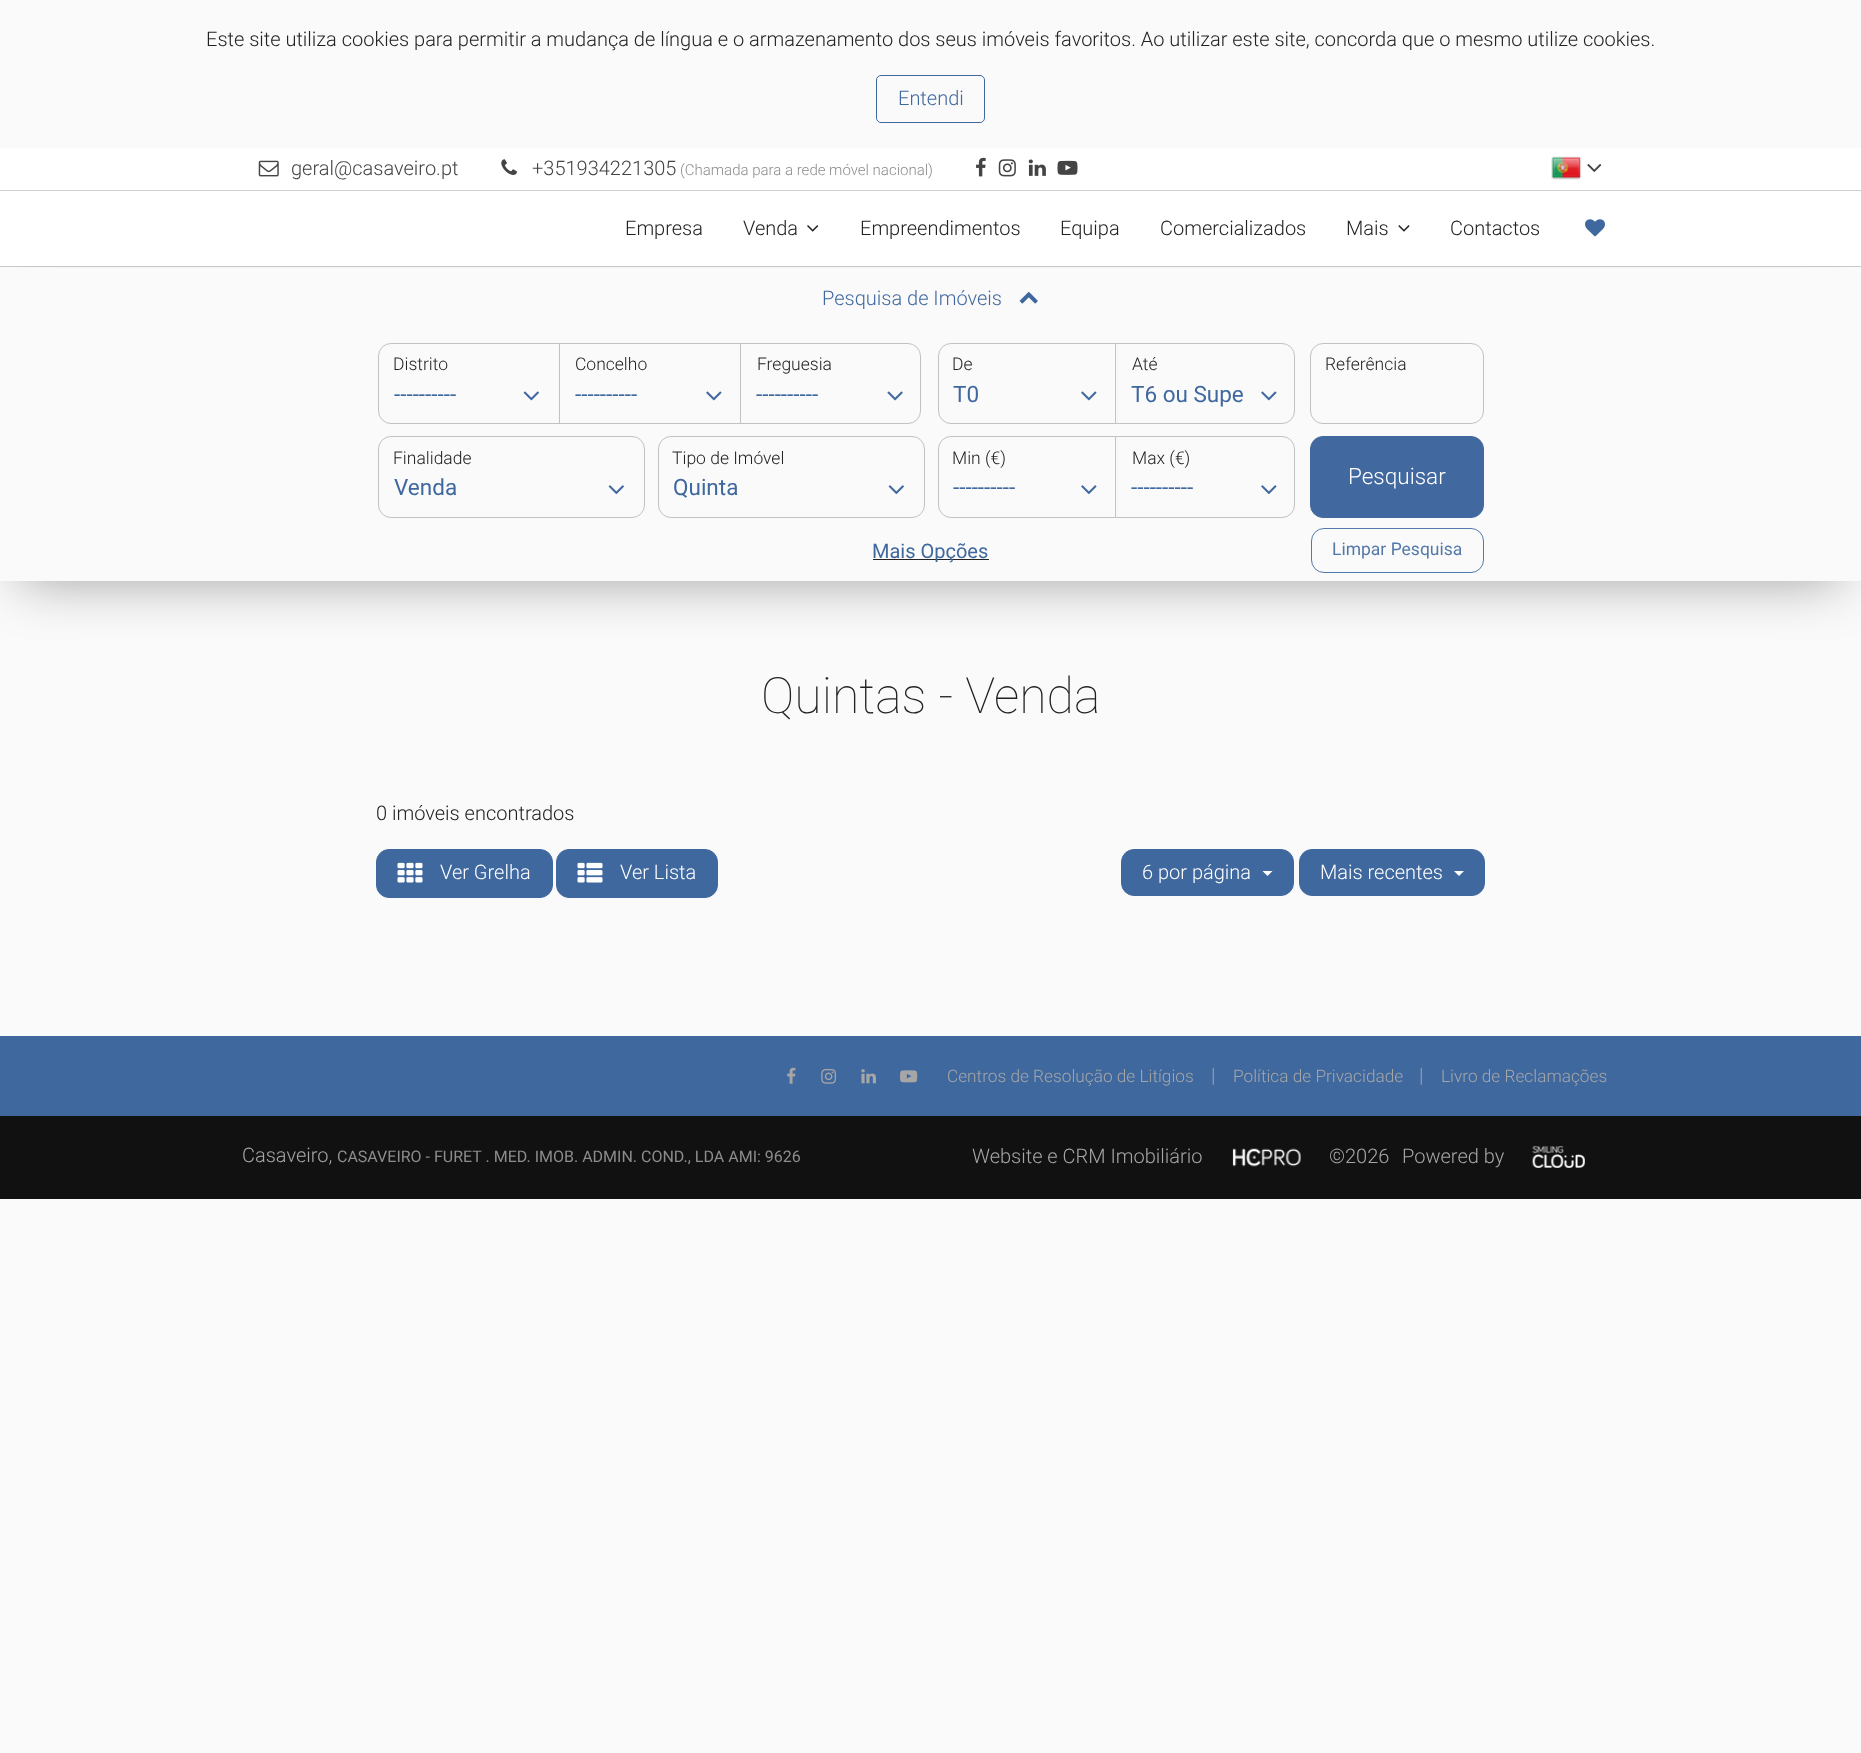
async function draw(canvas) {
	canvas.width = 1861;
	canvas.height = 1753;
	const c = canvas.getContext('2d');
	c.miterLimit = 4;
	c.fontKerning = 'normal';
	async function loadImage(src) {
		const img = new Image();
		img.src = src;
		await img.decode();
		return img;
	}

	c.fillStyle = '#fafafa';
	c.fillRect(0, 0, 1861, 1753);
	c.font = '300 20px Roboto';
	c.fillStyle = '#222';
	c.fillText('Este site utiliza cookies para permitir a mudança de língua e o armazenamento dos seus imóveis favoritos. Ao utilizar este site, concorda que o mesmo utilize cookies.', 206, 46);
	c.beginPath();
	c.roundRect(876.5, 75.5, 108, 47, 4.5);
	c.strokeStyle = '#3f689f';
	c.stroke();
	c.fillStyle = '#3f689f';
	c.fillText('Entendi', 898, 105);
	for (const [x, y, w, h, color] of [
		[0, 266, 1861, 1, '#cdcdcd'],
		[0, 148, 1861, 42, '#fff'],
		[0, 190, 1861, 1, '#d0d0d0'],
	]) {
		c.fillStyle = color;
		c.fillRect(x, y, w, h);
	}
	c.drawImage(await loadImage('img1.png'), 258, 160, 21, 17);
	c.fillStyle = '#444';
	c.fillText('geral@casaveiro.pt', 291, 175);
	c.drawImage(await loadImage('img2.png'), 501, 159, 16, 16);
	c.fillText('+351934221305', 532, 175);
	c.font = '300 15px Roboto';
	c.fillStyle = '#8c8c8c';
	c.fillText('(Chamada para a rede móvel nacional)', 680, 175);
	c.drawImage(await loadImage('img3.png'), 976, 157, 10, 20);
	c.drawImage(await loadImage('img4.png'), 998, 159, 18, 18);
	c.drawImage(await loadImage('img5.png'), 1028, 159, 18, 17);
	c.drawImage(await loadImage('img6.png'), 1057, 160, 21, 15);
	c.drawImage(await loadImage('img7.png'), 1551, 156, 31, 24);
	c.drawImage(await loadImage('img8.png'), 1587, 164, 15, 8);
	c.save();
	c.beginPath();
	c.moveTo(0, 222);
	c.lineTo(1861, 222);
	c.lineTo(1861, 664);
	c.lineTo(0, 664);
	c.closePath();
	c.moveTo(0, 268);
	c.lineTo(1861, 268);
	c.lineTo(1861, 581);
	c.lineTo(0, 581);
	c.closePath();
	c.clip('evenodd');
	c.fillStyle = '#0000005e';
	c.filter = 'blur(27.5px)';
	c.beginPath();
	c.rect(20, 306, 1821, 274);
	c.fill();
	c.filter = 'none';
	c.restore();
	c.fillStyle = '#fff';
	c.fillRect(0, 191, 1861, 75);
	c.font = '300 20px Roboto';
	c.fillStyle = '#222';
	c.fillText('Empresa', 625, 235);
	c.fillText('Venda', 743, 235);
	c.drawImage(await loadImage('img9.png'), 807, 225, 12, 7);
	for (const [text, x, y] of [
		['Empreendimentos', 860, 235],
		['Equipa', 1060, 235],
		['Comercializados', 1160, 235],
		['Mais', 1346, 235],
	]) {
		c.fillText(text, x, y);
	}
	c.drawImage(await loadImage('img10.png'), 1398, 225, 12, 7);
	c.fillText('Contactos', 1450, 235);
	c.drawImage(await loadImage('img11.png'), 1585, 219, 20, 18);
	c.fillStyle = '#3f689f';
	c.fillText('Pesquisa de Imóveis', 822, 305);
	c.drawImage(await loadImage('img12.png'), 1019, 292, 19, 12);
	c.beginPath();
	c.roundRect(378.5, 343.5, 181, 80, [12.5, 0, 0, 12.5]);
	c.strokeStyle = '#c2c2c2';
	c.stroke();
	c.font = '300 17.5px Roboto';
	c.fillStyle = '#222';
	c.fillText('Distrito', 393, 370);
	c.font = '22.5px Roboto';
	c.fillStyle = '#3f689f';
	c.fillText('----------', 394, 402);
	c.drawImage(await loadImage('img13.png'), 523, 391, 16, 10);
	c.strokeRect(559.5, 343.5, 181, 80);
	c.font = '300 17.5px Roboto';
	c.fillStyle = '#222';
	c.fillText('Concelho', 575, 370);
	c.font = '22.5px Roboto';
	c.fillStyle = '#3f689f';
	c.fillText('----------', 575, 402);
	c.drawImage(await loadImage('img14.png'), 706, 391, 16, 10);
	c.fillStyle = '#fafafae6';
	c.beginPath();
	c.roundRect(740.5, 343.5, 180, 80, [0, 12.5, 12.5, 0]);
	c.fill();
	c.stroke();
	c.font = '300 17.5px Roboto';
	c.fillStyle = '#222';
	c.fillText('Freguesia', 757, 370);
	c.font = '22.5px Roboto';
	c.fillStyle = '#3f689f';
	c.fillText('----------', 756, 402);
	c.drawImage(await loadImage('img15.png'), 887, 391, 16, 10);
	c.beginPath();
	c.roundRect(938.5, 343.5, 179, 80, [12.5, 0, 0, 12.5]);
	c.stroke();
	c.font = '300 17.5px Roboto';
	c.fillStyle = '#222';
	c.fillText('De', 952, 370);
	c.font = '22.5px Roboto';
	c.fillStyle = '#3f689f';
	c.fillText('T0', 953, 402);
	c.drawImage(await loadImage('img16.png'), 1081, 391, 16, 10);
	c.fillStyle = '#fafafae6';
	c.beginPath();
	c.roundRect(1115.5, 343.5, 179, 80, [0, 12.5, 12.5, 0]);
	c.fill();
	c.stroke();
	c.font = '300 17.5px Roboto';
	c.fillStyle = '#222';
	c.fillText('Até', 1132, 370);
	c.font = '22.5px Roboto';
	c.fillStyle = '#3f689f';
	c.fillText('T6 ou Supe', 1131, 402);
	c.drawImage(await loadImage('img16.png'), 1261, 391, 16, 10);
	c.beginPath();
	c.roundRect(1310.5, 343.5, 173, 80, 12.5);
	c.stroke();
	c.font = '300 17.5px Roboto';
	c.fillStyle = '#222';
	c.fillText('Referência', 1325, 370);
	c.beginPath();
	c.roundRect(378.5, 436.5, 266, 81, 12.5);
	c.stroke();
	c.fillText('Finalidade', 393, 464);
	c.font = '22.5px Roboto';
	c.fillStyle = '#3f689f';
	c.fillText('Venda', 394, 495);
	c.drawImage(await loadImage('img17.png'), 608, 485, 16, 10);
	c.beginPath();
	c.roundRect(658.5, 436.5, 266, 81, 12.5);
	c.stroke();
	c.font = '300 17.5px Roboto';
	c.fillStyle = '#222';
	c.fillText('Tipo de Imóvel', 672, 464);
	c.font = '22.5px Roboto';
	c.fillStyle = '#3f689f';
	c.fillText('Quinta', 673, 495);
	c.drawImage(await loadImage('img17.png'), 888, 485, 16, 10);
	c.beginPath();
	c.roundRect(938.5, 436.5, 179, 81, [12.5, 0, 0, 12.5]);
	c.stroke();
	c.font = '300 17.5px Roboto';
	c.fillStyle = '#222';
	c.fillText('Min (€)', 952, 464);
	c.font = '22.5px Roboto';
	c.fillStyle = '#3f689f';
	c.fillText('----------', 953, 495);
	c.drawImage(await loadImage('img18.png'), 1081, 485, 16, 10);
	c.fillStyle = '#fafafae6';
	c.beginPath();
	c.roundRect(1115.5, 436.5, 179, 81, [0, 12.5, 12.5, 0]);
	c.fill();
	c.stroke();
	c.font = '300 17.5px Roboto';
	c.fillStyle = '#222';
	c.fillText('Max (€)', 1132, 464);
	c.font = '22.5px Roboto';
	c.fillStyle = '#3f689f';
	c.fillText('----------', 1131, 495);
	c.drawImage(await loadImage('img18.png'), 1261, 485, 16, 10);
	c.fillStyle = '#4169a0';
	c.beginPath();
	c.roundRect(1310.5, 436.5, 173, 81, 12.5);
	c.fill();
	c.strokeStyle = '#4169a0';
	c.stroke();
	c.font = '300 22.5px Roboto';
	c.fillStyle = '#fff';
	c.fillText('Pesquisar', 1348, 484);
	c.fillStyle = '#242424';
	c.fillRect(873, 559, 116, 1);
	c.font = '20px Roboto';
	c.fillStyle = '#3f689f';
	c.fillText('Mais Opções', 872, 558);
	c.beginPath();
	c.roundRect(1311.5, 528.5, 172, 44, 12.5);
	c.strokeStyle = '#5378a9';
	c.stroke();
	c.font = '17.5px Roboto';
	c.fillStyle = '#5378a9';
	c.fillText('Limpar Pesquisa', 1332, 555);
	c.font = '100 50px Roboto';
	c.fillStyle = '#222';
	c.fillText('Quintas - Venda', 761, 713);
	c.font = '300 20px Roboto';
	c.fillText('0 imóveis encontrados', 376, 820);
	c.fillStyle = '#3f689f';
	c.beginPath();
	c.roundRect(376.5, 849.5, 176, 48, 12.5);
	c.fill();
	c.strokeStyle = '#3f689f';
	c.stroke();
	c.drawImage(await loadImage('img19.png'), 397, 862, 26, 21);
	c.fillStyle = '#fff';
	c.fillText('Ver Grelha', 440, 879);
	c.fillStyle = '#3f689f';
	c.beginPath();
	c.roundRect(556.5, 849.5, 161, 48, 12.5);
	c.fill();
	c.stroke();
	c.drawImage(await loadImage('img20.png'), 577, 862, 26, 21);
	c.fillStyle = '#fff';
	c.fillText('Ver Lista', 620, 879);
	c.fillStyle = '#3f689f';
	c.beginPath();
	c.roundRect(1121.5, 849.5, 172, 46, 12.5);
	c.fill();
	c.stroke();
	c.fillStyle = '#fff';
	c.fillText('6 por página', 1142, 879);
	c.beginPath();
	c.moveTo(1262.5, 871);
	c.lineTo(1272.5, 871);
	c.lineTo(1267.5, 876);
	c.closePath();
	c.fill();
	c.fillStyle = '#3f689f';
	c.beginPath();
	c.roundRect(1299.5, 849.5, 185, 46, 12.5);
	c.fill();
	c.stroke();
	c.fillStyle = '#fff';
	c.fillText('Mais recentes', 1320, 879);
	c.beginPath();
	c.moveTo(1454, 871);
	c.lineTo(1464, 871);
	c.lineTo(1459, 876);
	c.closePath();
	c.fill();
	c.fillStyle = '#111';
	c.fillRect(0, 1116, 1861, 83);
	c.fillStyle = '#3f689f';
	c.fillRect(0, 1036, 1861, 80);
	c.drawImage(await loadImage('img21.png'), 787, 1067, 9, 17);
	c.drawImage(await loadImage('img22.png'), 821, 1069, 15, 15);
	c.drawImage(await loadImage('img23.png'), 861, 1069, 15, 15);
	c.drawImage(await loadImage('img24.png'), 900, 1070, 18, 13);
	c.font = '300 17.25px Roboto';
	c.fillStyle = '#a6a6a6';
	c.fillText('Centros de Resolução de Litígios', 947, 1082);
	c.font = '300 20px Roboto';
	c.fillText('|', 1211, 1082);
	c.font = '300 17.25px Roboto';
	c.fillText('Política de Privacidade', 1233, 1082);
	c.font = '300 20px Roboto';
	c.fillText('|', 1419, 1082);
	c.font = '300 17.25px Roboto';
	c.fillText('Livro de Reclamações', 1441, 1082);
	c.font = '300 20px Roboto';
	c.fillText('Casaveiro,', 242, 1162);
	c.font = '16px Roboto';
	c.fillStyle = '#8c8c8c';
	c.fillText('CASAVEIRO - FURET . MED. IMOB. ADMIN. COND., LDA AMI: 9626', 337, 1162);
	c.font = '300 20px Roboto';
	c.fillStyle = '#a6a6a6';
	c.fillText('Website e CRM Imobiliário', 972, 1163);
	c.drawImage(await loadImage('img25.png'), 1232, 1148, 69, 19);
	c.fillText('©2026', 1329, 1163);
	c.fillText('Powered by', 1402, 1163);
	c.drawImage(await loadImage('img26.png'), 1532, 1146, 53, 22);
}

draw(document.querySelector('canvas'));
